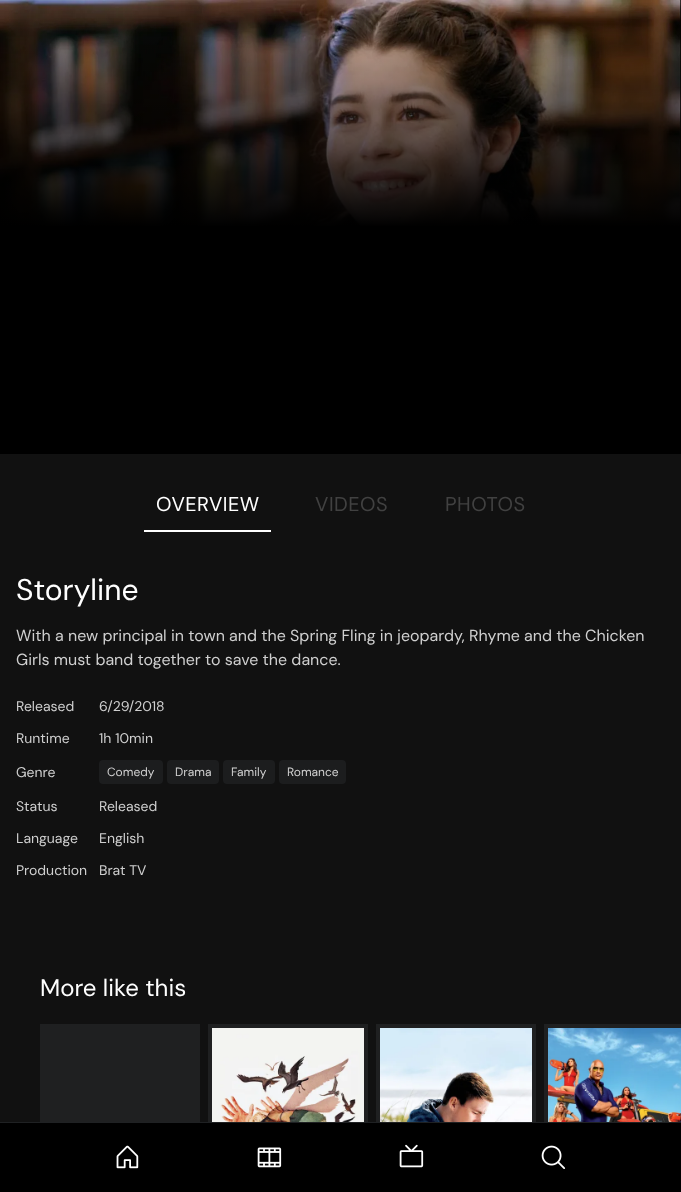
async function draw(canvas) {
	canvas.width = 681;
	canvas.height = 1192;
	const c = canvas.getContext('2d');
	c.miterLimit = 4;
	c.fontKerning = 'normal';
	async function loadImage(src) {
		const img = new Image();
		img.src = src;
		await img.decode();
		return img;
	}
	let gradient;

	c.fillStyle = '#111';
	c.fillRect(0, 0, 681, 1192);
	c.drawImage(await loadImage('img1.png'), 0, 0, 681, 226);
	gradient = c.createLinearGradient(341, 454, 341, 0);
	gradient.addColorStop(0, '#000');
	gradient.addColorStop(0.5, '#000');
	gradient.addColorStop(1, '#00000000');
	c.fillStyle = gradient;
	c.fillRect(0, 5, 681, 449);
	c.fillStyle = '#fff';
	c.fillRect(144, 530, 127, 2);
	c.letterSpacing = '0.5px';
	c.font = '20px DM Sans';
	c.fillText('OVERVIEW', 156, 511);
	c.fillStyle = '#414141';
	c.fillText('VIDEOS', 315, 511);
	c.fillText('PHOTOS', 445, 511);
	c.letterSpacing = '0px';
	c.font = '30px DM Sans';
	c.fillStyle = '#fff';
	c.fillText('Storyline', 16, 600);
	c.font = '16px DM Sans';
	c.fillStyle = '#cfcfcf';
	c.fillText('With a new principal in town and the Spring Fling in jeopardy, Rhyme and the Chicken', 16, 641);
	c.fillText('Girls must band together to save the dance.', 16, 665);
	c.font = '14px DM Sans';
	for (const [text, x, y] of [
		['Released', 16, 711],
		['6/29/2018', 99, 711],
		['Runtime', 16, 743],
		['1h 10min', 99, 743],
		['Genre', 16, 777],
	]) {
		c.fillText(text, x, y);
	}
	c.fillStyle = '#1c1d1e';
	c.beginPath();
	c.roundRect(99, 760, 64, 24, 4);
	c.fill();
	c.font = '12px DM Sans';
	c.fillStyle = '#cfcfcf';
	c.fillText('Comedy', 107, 776);
	c.fillStyle = '#1c1d1e';
	c.beginPath();
	c.roundRect(167, 760, 52, 24, 4);
	c.fill();
	c.fillStyle = '#cfcfcf';
	c.fillText('Drama', 175, 776);
	c.fillStyle = '#1c1d1e';
	c.beginPath();
	c.roundRect(223, 760, 52, 24, 4);
	c.fill();
	c.fillStyle = '#cfcfcf';
	c.fillText('Family', 231, 776);
	c.fillStyle = '#1c1d1e';
	c.beginPath();
	c.roundRect(279, 760, 67, 24, 4);
	c.fill();
	c.fillStyle = '#cfcfcf';
	c.fillText('Romance', 287, 776);
	c.font = '14px DM Sans';
	for (const [text, x, y] of [
		['Status', 16, 811],
		['Released', 99, 811],
		['Language', 16, 843],
		['English', 99, 843],
		['Production', 16, 875],
		['Brat TV', 99, 875],
	]) {
		c.fillText(text, x, y);
	}
	c.font = '24px DM Sans';
	c.fillStyle = '#fff';
	c.fillText('More like this', 40, 996);
	c.fillStyle = '#1f2021';
	c.fillRect(40, 1024, 160, 98);
	c.fillRect(208, 1024, 160, 98);
	c.drawImage(await loadImage('img2.png'), 212, 1028, 152, 94);
	c.fillRect(376, 1024, 160, 98);
	c.drawImage(await loadImage('img3.png'), 380, 1028, 152, 94);
	c.fillRect(544, 1024, 137, 98);
	c.drawImage(await loadImage('img4.png'), 548, 1028, 133, 94);
	c.fillStyle = '#000';
	c.fillRect(0, 1123, 681, 69);
	c.fillStyle = '#1f2123';
	c.fillRect(0, 1122, 681, 1);
	c.drawImage(await loadImage('img5.png'), 116, 1145, 23, 24);
	c.drawImage(await loadImage('img6.png'), 257, 1147, 25, 21);
	c.drawImage(await loadImage('img7.png'), 399, 1144, 25, 24);
	c.drawImage(await loadImage('img8.png'), 541, 1145, 25, 24);
}

draw(document.querySelector('canvas'));
